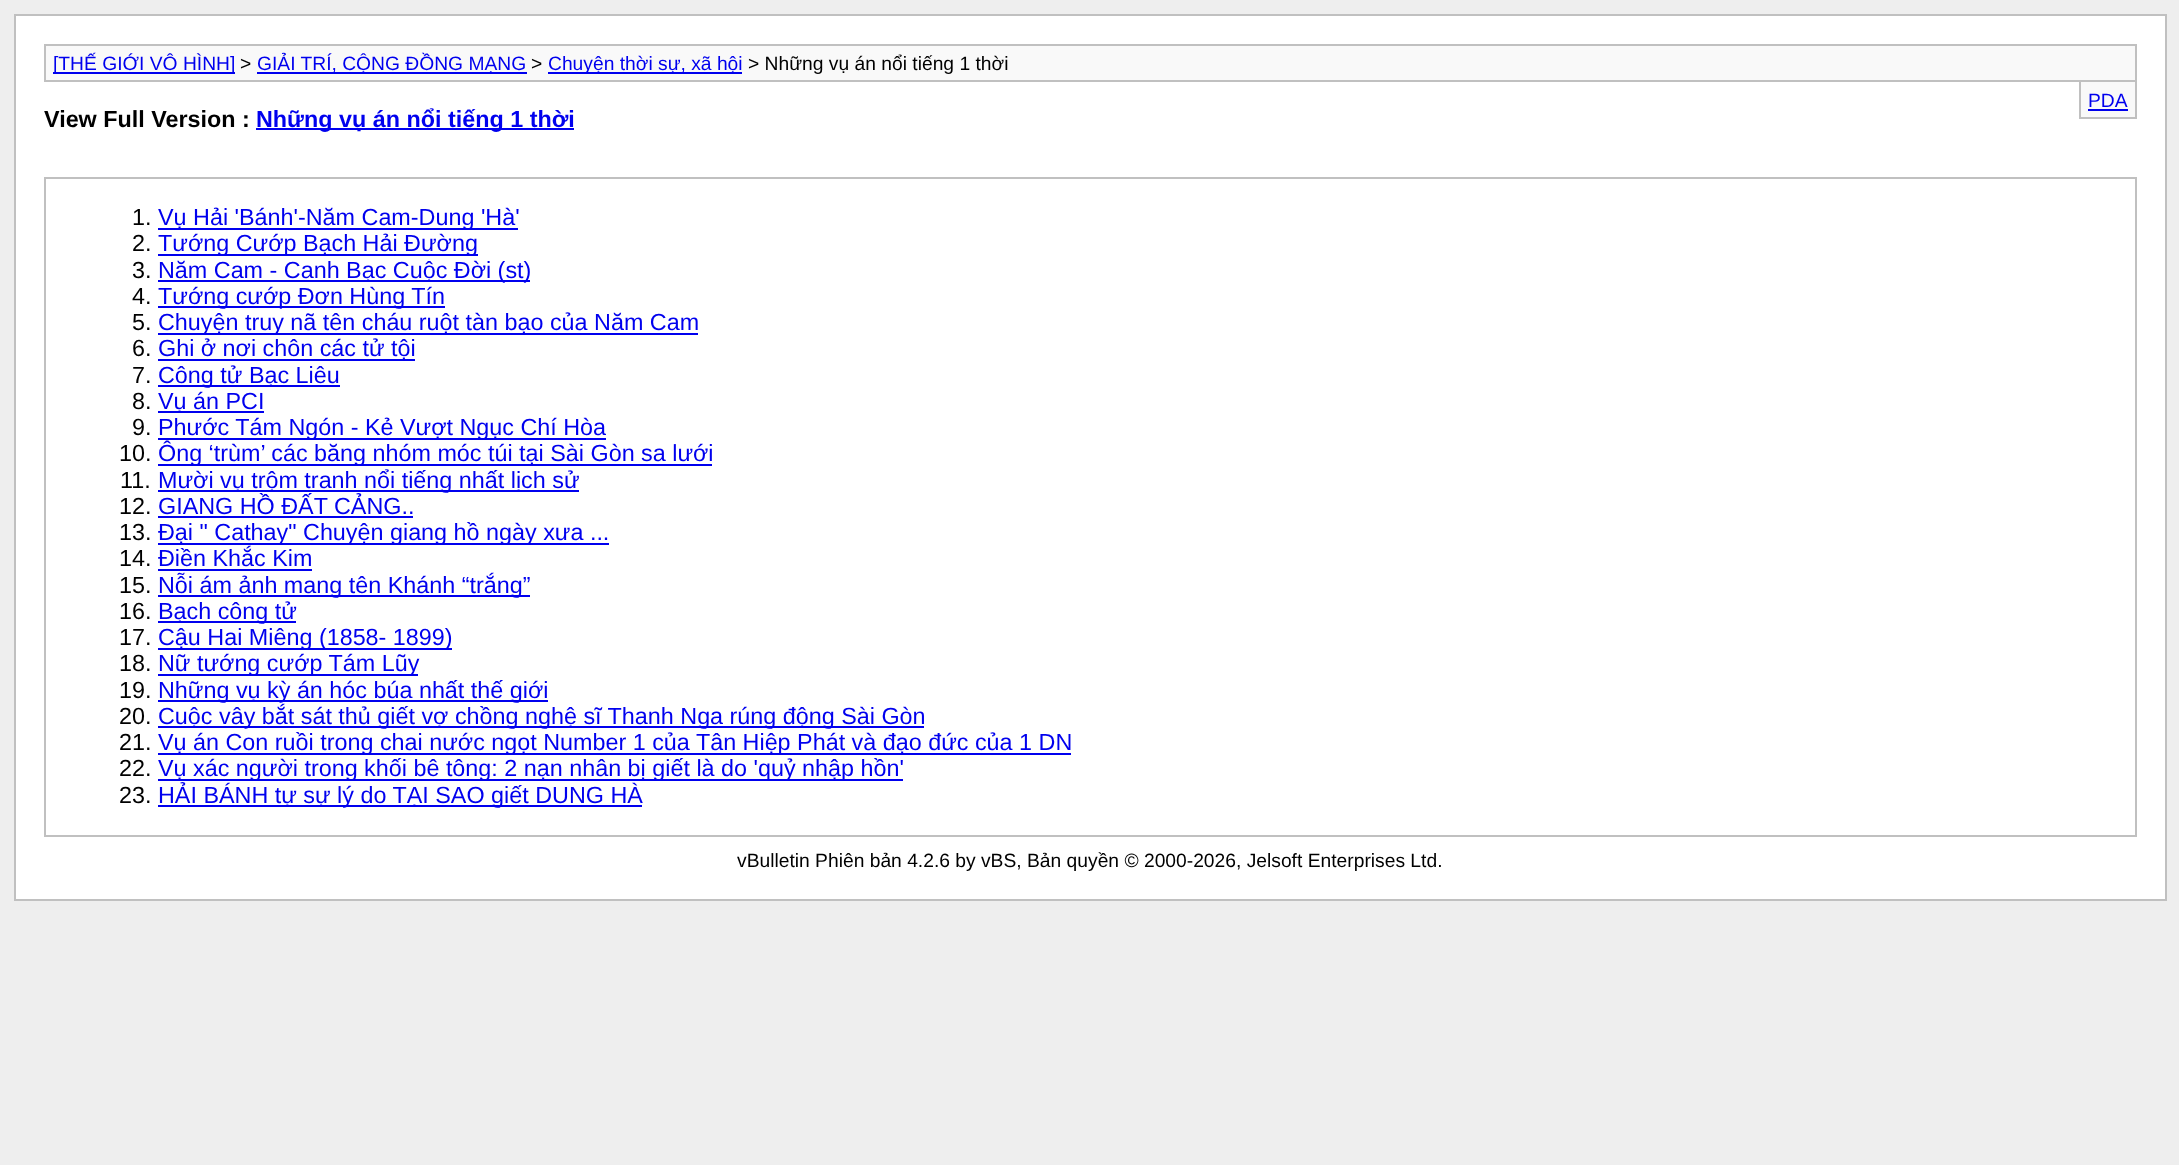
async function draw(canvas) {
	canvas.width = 2179;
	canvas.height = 1165;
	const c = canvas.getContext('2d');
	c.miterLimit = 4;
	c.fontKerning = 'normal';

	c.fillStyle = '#eee';
	c.fillRect(0, 0, 2179, 1165);
	c.fillStyle = '#fff';
	c.beginPath();
	c.rect(15, 15, 2151, 885);
	c.fill();
	c.strokeStyle = '#c0c0c0';
	c.lineWidth = 2;
	c.stroke();
	c.fillStyle = '#f9f9f9';
	c.beginPath();
	c.rect(45, 45, 2091, 36);
	c.fill();
	c.stroke();
	c.fillStyle = '#00e';
	c.fillRect(53, 72, 182, 2);
	c.font = '19.25px Liberation Sans';
	c.fillText('[THẾ GIỚI VÔ HÌNH]', 53, 70);
	c.fillStyle = '#000';
	c.fillText('>', 240, 70);
	c.fillStyle = '#00e';
	c.fillRect(257, 72, 270, 2);
	c.fillText('GIẢI TRÍ, CỘNG ĐỒNG MẠNG', 257, 70);
	c.fillStyle = '#000';
	c.fillText('>', 531, 70);
	c.fillStyle = '#00e';
	c.fillRect(548, 72, 194, 2);
	c.fillText('Chuyện thời sự, xã hội', 548, 70);
	c.fillStyle = '#000';
	c.fillText('> Những vụ án nổi tiếng 1 thời', 748, 70);
	for (const [x, y, w, h, color] of [
		[2081, 82, 54, 35, '#f9f9f9'],
		[2135, 82, 2, 37, '#c0c0c0'],
		[2079, 117, 58, 2, '#c0c0c0'],
		[2079, 82, 2, 37, '#c0c0c0'],
	]) {
		c.fillStyle = color;
		c.fillRect(x, y, w, h);
	}
	c.fillStyle = '#00e';
	c.fillText('PDA', 2088, 107);
	c.fillRect(2088, 109, 40, 2);
	c.font = 'bold 23.35px Liberation Sans';
	c.fillStyle = '#000';
	c.fillText('View Full Version :', 44, 127);
	c.fillStyle = '#00e';
	c.fillRect(256, 128, 318, 2);
	c.fillText('Những vụ án nổi tiếng 1 thời', 256, 127);
	c.strokeRect(45, 178, 2091, 658);
	c.font = '23.35px Liberation Sans';
	c.fillStyle = '#000';
	c.fillText('1.', 132, 225);
	c.fillStyle = '#00e';
	c.fillRect(158, 228, 360, 2);
	c.fillText('Vụ Hải \'Bánh\'-Năm Cam-Dung \'Hà\'', 158, 225);
	c.fillStyle = '#000';
	c.fillText('2.', 132, 251);
	c.fillStyle = '#00e';
	c.fillRect(158, 254, 320, 2);
	c.fillText('Tướng Cướp Bạch Hải Đường', 158, 251);
	c.fillStyle = '#000';
	c.fillText('3.', 132, 278);
	c.fillStyle = '#00e';
	c.fillRect(158, 280, 372, 2);
	c.fillText('Năm Cam - Canh Bạc Cuộc Đời (st)', 158, 278);
	c.fillStyle = '#000';
	c.fillText('4.', 132, 304);
	c.fillStyle = '#00e';
	c.fillRect(158, 306, 287, 2);
	c.fillText('Tướng cướp Đơn Hùng Tín', 158, 304);
	c.fillStyle = '#000';
	c.fillText('5.', 132, 330);
	c.fillStyle = '#00e';
	c.fillRect(158, 333, 540, 2);
	c.fillText('Chuyện truy nã tên cháu ruột tàn bạo của Năm Cam', 158, 330);
	c.fillStyle = '#000';
	c.fillText('6.', 132, 356);
	c.fillStyle = '#00e';
	c.fillRect(158, 359, 257, 2);
	c.fillText('Ghi ở nơi chôn các tử tội', 158, 356);
	c.fillStyle = '#000';
	c.fillText('7.', 132, 383);
	c.fillStyle = '#00e';
	c.fillRect(158, 385, 182, 2);
	c.fillText('Công tử Bạc Liêu', 158, 383);
	c.fillStyle = '#000';
	c.fillText('8.', 132, 409);
	c.fillStyle = '#00e';
	c.fillRect(158, 411, 106, 2);
	c.fillText('Vụ án PCI', 158, 409);
	c.fillStyle = '#000';
	c.fillText('9.', 132, 435);
	c.fillStyle = '#00e';
	c.fillRect(158, 438, 448, 2);
	c.fillText('Phước Tám Ngón - Kẻ Vượt Ngục Chí Hòa', 158, 435);
	c.fillStyle = '#000';
	c.fillText('10.', 119, 461);
	c.fillStyle = '#00e';
	c.fillRect(158, 464, 554, 2);
	c.fillText('Ông ‘trùm’ các băng nhóm móc túi tại Sài Gòn sa lưới', 158, 461);
	c.fillStyle = '#000';
	c.fillText('11.', 120, 488);
	c.fillStyle = '#00e';
	c.fillRect(158, 490, 421, 2);
	c.fillText('Mười vụ trộm tranh nổi tiếng nhất lịch sử', 158, 488);
	c.fillStyle = '#000';
	c.fillText('12.', 119, 514);
	c.fillStyle = '#00e';
	c.fillText('GIANG HỒ ĐẤT CẢNG..', 158, 514);
	c.fillRect(158, 516, 255, 2);
	c.fillStyle = '#000';
	c.fillText('13.', 119, 540);
	c.fillStyle = '#00e';
	c.fillRect(158, 543, 451, 2);
	c.fillText('Đại " Cathay" Chuyện giang hồ ngày xưa ...', 158, 540);
	c.fillStyle = '#000';
	c.fillText('14.', 119, 566);
	c.fillStyle = '#00e';
	c.fillText('Điền Khắc Kim', 158, 566);
	c.fillRect(158, 569, 154, 2);
	c.fillStyle = '#000';
	c.fillText('15.', 119, 593);
	c.fillStyle = '#00e';
	c.fillRect(158, 595, 372, 2);
	c.fillText('Nỗi ám ảnh mang tên Khánh “trắng”', 158, 593);
	c.fillStyle = '#000';
	c.fillText('16.', 119, 619);
	c.fillStyle = '#00e';
	c.fillRect(158, 621, 138, 2);
	c.fillText('Bạch công tử', 158, 619);
	c.fillStyle = '#000';
	c.fillText('17.', 119, 645);
	c.fillStyle = '#00e';
	c.fillRect(158, 648, 294, 2);
	c.fillText('Cậu Hai Miêng (1858- 1899)', 158, 645);
	c.fillStyle = '#000';
	c.fillText('18.', 119, 671);
	c.fillStyle = '#00e';
	c.fillRect(158, 674, 260, 2);
	c.fillText('Nữ tướng cướp Tám Lũy', 158, 671);
	c.fillStyle = '#000';
	c.fillText('19.', 119, 698);
	c.fillStyle = '#00e';
	c.fillRect(158, 700, 390, 2);
	c.fillText('Những vụ kỳ án hóc búa nhất thế giới', 158, 698);
	c.fillStyle = '#000';
	c.fillText('20.', 119, 724);
	c.fillStyle = '#00e';
	c.fillRect(158, 726, 766, 2);
	c.fillText('Cuộc vây bắt sát thủ giết vợ chồng nghệ sĩ Thanh Nga rúng động Sài Gòn', 158, 724);
	c.fillStyle = '#000';
	c.fillText('21.', 119, 750);
	c.fillStyle = '#00e';
	c.fillRect(158, 753, 913, 2);
	c.fillText('Vụ án Con ruồi trong chai nước ngọt Number 1 của Tân Hiệp Phát và đạo đức của 1 DN', 158, 750);
	c.fillStyle = '#000';
	c.fillText('22.', 119, 776);
	c.fillStyle = '#00e';
	c.fillRect(158, 779, 745, 2);
	c.fillText('Vụ xác người trong khối bê tông: 2 nạn nhân bị giết là do \'quỷ nhập hồn\'', 158, 776);
	c.fillStyle = '#000';
	c.fillText('23.', 119, 803);
	c.fillStyle = '#00e';
	c.fillRect(158, 805, 484, 2);
	c.fillText('HẢI BÁNH tự sự lý do TẠI SAO giết DUNG HÀ', 158, 803);
	c.font = '19.25px Liberation Sans';
	c.fillStyle = '#000';
	c.fillText('vBulletin Phiên bản 4.2.6 by vBS, Bản quyền © 2000-2026, Jelsoft Enterprises Ltd.', 737, 867);
}

draw(document.querySelector('canvas'));
